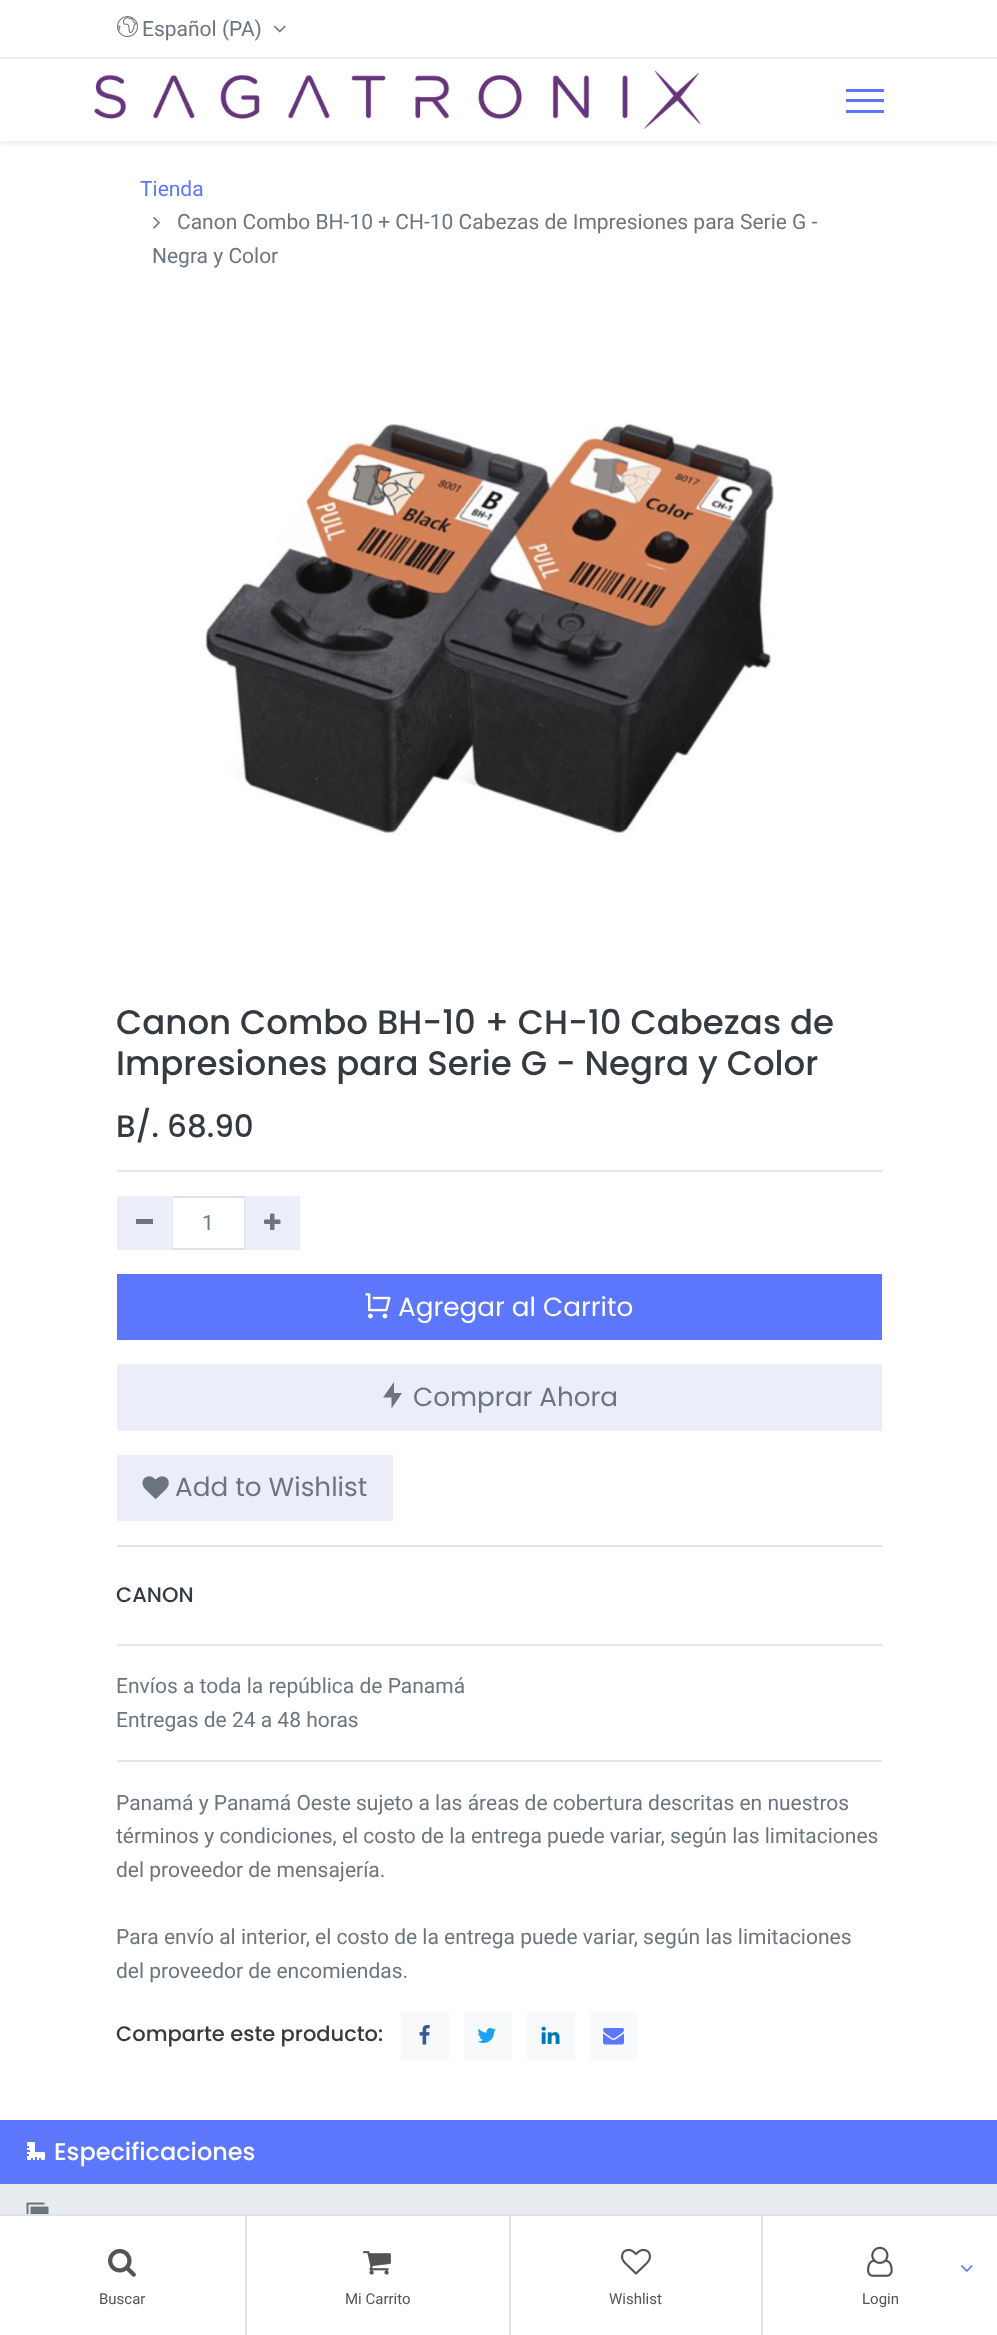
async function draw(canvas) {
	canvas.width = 997;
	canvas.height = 2335;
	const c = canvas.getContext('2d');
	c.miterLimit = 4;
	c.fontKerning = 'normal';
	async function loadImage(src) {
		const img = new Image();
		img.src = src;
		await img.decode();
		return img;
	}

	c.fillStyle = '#fff';
	c.fillRect(0, 0, 997, 2335);
	c.fillStyle = '#edeeef';
	c.fillRect(0, 57, 997, 2);
	c.drawImage(await loadImage('img1.png'), 117, 16, 21, 21);
	c.font = '21px Roboto';
	c.fillStyle = '#6c757d';
	c.fillText('Español (PA)', 142, 36);
	c.drawImage(await loadImage('img2.png'), 274, 25, 12, 8);
	c.save();
	c.beginPath();
	c.rect(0, 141, 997, 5);
	c.clip();
	c.fillStyle = '#00000012';
	c.filter = 'blur(3px)';
	c.beginPath();
	c.rect(0, 62, 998, 82);
	c.fill();
	c.filter = 'none';
	c.restore();
	c.drawImage(await loadImage('img3.png'), 94, 71, 607, 59);
	for (const [x, y, w, h, color] of [
		[846, 89, 38, 3, '#5c77fc'],
		[846, 99, 38, 3, '#5c77fc'],
		[846, 110, 38, 3, '#5c77fc'],
	]) {
		c.fillStyle = color;
		c.fillRect(x, y, w, h);
	}
	c.fillText('Tienda', 140, 196);
	c.drawImage(await loadImage('img4.png'), 153, 217, 7, 12);
	c.fillStyle = '#6c757d';
	c.fillText('Canon Combo BH-10 + CH-10 Cabezas de Impresiones para Serie G -', 177, 229);
	c.fillText('Negra y Color', 152, 263);
	c.drawImage(await loadImage('img5.png'), 201, 422, 574, 414);
	c.font = '500 34px Poppins';
	c.fillStyle = '#343a40';
	c.fillText('Canon Combo BH-10 + CH-10 Cabezas de', 116, 1034);
	c.fillText('Impresiones para Serie G - Negra y Color', 116, 1075);
	c.font = '500 31px Poppins';
	c.fillText('B/. 68.90', 116, 1137);
	c.fillStyle = '#e6e6e6';
	c.fillRect(117, 1170, 765, 2);
	c.strokeStyle = '#dee2e6';
	c.lineWidth = 2;
	c.strokeRect(172, 1197, 73, 52);
	c.fillStyle = '#ebedf8';
	c.fillRect(117, 1196, 56, 54);
	c.fillStyle = '#6c757d';
	c.fillRect(136, 1219, 17, 5);
	c.font = '21px Roboto';
	c.fillText('1', 202, 1230);
	c.fillStyle = '#ebedf8';
	c.fillRect(245, 1196, 55, 54);
	c.drawImage(await loadImage('img6.png'), 264, 1213, 17, 17);
	c.fillStyle = '#5c77fc';
	c.fillRect(117, 1274, 765, 66);
	c.drawImage(await loadImage('img7.png'), 365, 1293, 26, 26);
	c.font = '26.25px Poppins';
	c.fillStyle = '#fff';
	c.fillText('Agregar al Carrito', 398, 1316);
	c.fillStyle = '#ebedf8';
	c.fillRect(117, 1364, 765, 67);
	c.fillStyle = '#6c757d';
	c.beginPath();
	c.moveTo(394, 1393);
	c.lineTo(402, 1393);
	c.lineTo(391.5, 1408.5);
	c.lineTo(391.5, 1397.5);
	c.lineTo(383, 1397.5);
	c.lineTo(394, 1382);
	c.closePath();
	c.fill();
	c.fillText('Comprar Ahora', 413, 1406);
	c.fillStyle = '#ebedf8';
	c.fillRect(117, 1455, 276, 66);
	c.drawImage(await loadImage('img8.png'), 142, 1476, 27, 23);
	c.fillStyle = '#6c757d';
	c.fillText('Add to Wishlist', 175, 1496);
	c.fillStyle = '#e6e6e6';
	c.fillRect(117, 1545, 765, 2);
	c.font = '500 21px Poppins';
	c.fillStyle = '#343a40';
	c.fillText('CANON', 116, 1602);
	c.fillStyle = '#e6e6e6';
	c.fillRect(117, 1644, 765, 2);
	c.font = '21px Roboto';
	c.fillStyle = '#6c757d';
	c.fillText('Envíos a toda la república de Panamá', 116, 1693);
	c.fillText('Entregas de 24 a 48 horas', 116, 1727);
	c.fillStyle = '#e6e6e6';
	c.fillRect(117, 1760, 765, 2);
	c.fillStyle = '#6c757d';
	for (const [text, x, y] of [
		['Panamá y Panamá Oeste sujeto a las áreas de cobertura descritas en nuestros', 116, 1810],
		['términos y condiciones, el costo de la entrega puede variar, según las limitaciones', 116, 1843],
		['del proveedor de mensajería.', 116, 1877],
		['Para envío al interior, el costo de la entrega puede variar, según las limitaciones', 116, 1944],
		['del proveedor de encomiendas.', 116, 1978],
	]) {
		c.fillText(text, x, y);
	}
	c.font = '500 21px Poppins';
	c.fillStyle = '#343a40';
	c.fillText('Comparte este producto:', 116, 2041);
	c.fillStyle = '#f8f9fa';
	c.fillRect(401, 2012, 48, 48);
	c.drawImage(await loadImage('img9.png'), 419, 2025, 11, 20);
	c.fillRect(464, 2012, 48, 48);
	c.drawImage(await loadImage('img10.png'), 477, 2028, 19, 15);
	c.fillRect(527, 2012, 48, 48);
	c.drawImage(await loadImage('img11.png'), 541, 2026, 19, 18);
	c.fillRect(590, 2012, 48, 48);
	c.drawImage(await loadImage('img12.png'), 603, 2028, 21, 17);
	c.fillStyle = '#e9ecef';
	c.fillRect(0, 2184, 997, 30);
	c.fillStyle = '#5c77fc';
	c.fillRect(0, 2120, 997, 64);
	c.drawImage(await loadImage('img13.png'), 27, 2142, 18, 18);
	c.font = '500 24px Poppins';
	c.fillStyle = '#fff';
	c.fillText('Especificaciones', 54, 2160);
	c.drawImage(await loadImage('img14.png'), 26, 2202, 23, 12);
	c.fillStyle = '#dee2e6';
	c.fillRect(0, 2214, 997, 2);
	c.fillRect(245, 2216, 2, 119);
	c.drawImage(await loadImage('img15.png'), 108, 2248, 28, 29);
	c.font = '15px Roboto';
	c.fillStyle = '#545454';
	c.fillText('Buscar', 99, 2304);
	c.fillStyle = '#dee2e6';
	c.fillRect(509, 2216, 2, 119);
	c.drawImage(await loadImage('img16.png'), 363, 2251, 28, 24);
	c.fillStyle = '#545454';
	c.fillText('Mi Carrito', 345, 2304);
	c.fillStyle = '#dee2e6';
	c.fillRect(761, 2216, 2, 119);
	c.drawImage(await loadImage('img17.png'), 621, 2248, 30, 27);
	c.fillStyle = '#545454';
	c.fillText('Wishlist', 609, 2304);
	c.drawImage(await loadImage('img18.png'), 867, 2246, 26, 31);
	c.drawImage(await loadImage('img19.png'), 961, 2265, 12, 7);
	c.fillText('Login', 862, 2304);
}

draw(document.querySelector('canvas'));
